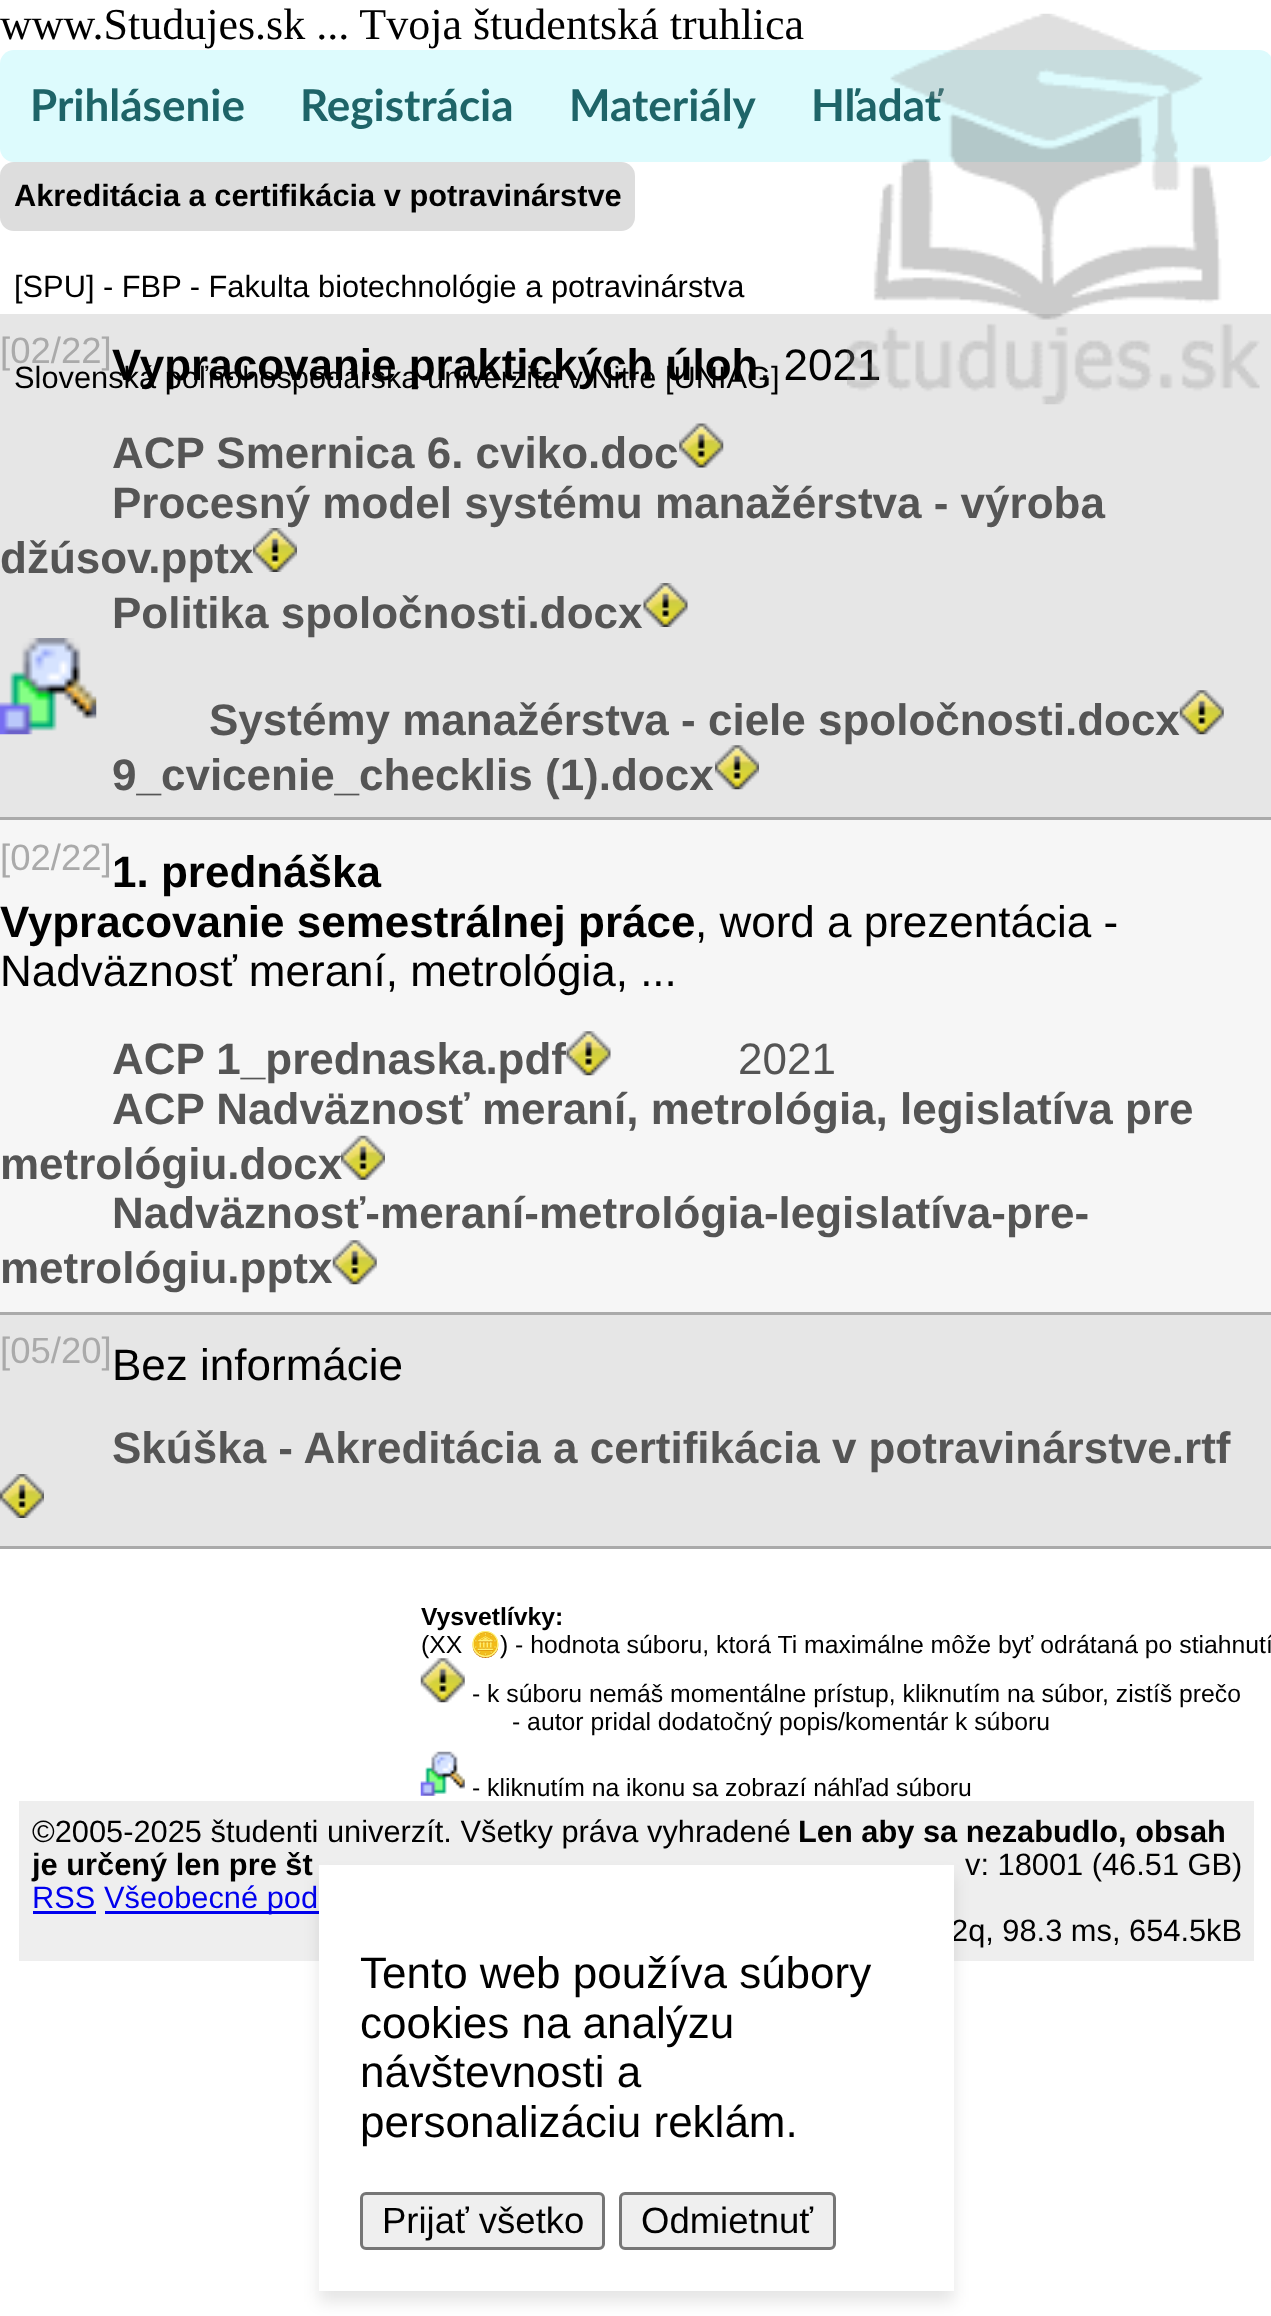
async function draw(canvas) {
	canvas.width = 1271;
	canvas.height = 2316;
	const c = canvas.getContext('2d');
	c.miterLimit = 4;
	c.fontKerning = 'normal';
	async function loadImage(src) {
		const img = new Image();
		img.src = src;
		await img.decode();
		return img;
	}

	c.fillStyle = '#fff';
	c.fillRect(0, 0, 1271, 2316);
	c.font = '44px Liberation Serif';
	c.fillStyle = '#000';
	c.fillText('www.Studujes.sk ... Tvoja študentská truhlica', 0, 39);
	c.fillStyle = '#ddfbfd';
	c.beginPath();
	c.roundRect(0, 50, 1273, 112, 14);
	c.fill();
	c.font = 'bold 44px Lato';
	c.fillStyle = '#1e6468';
	c.fillText('Hľadať', 811, 121);
	c.fillStyle = '#e6e6e6';
	c.fillRect(0, 314, 1271, 503);
	c.font = '44px Liberation Sans';
	c.fillStyle = '#000';
	c.fillText(', 2021', 759, 380);
	c.drawImage(await loadImage('img1.png'), 847, 13, 413, 392);
	c.font = 'bold 44px Lato';
	c.fillStyle = '#1e6468';
	for (const [text, x, y] of [
		['Prihlásenie', 30, 121],
		['Registrácia', 300, 121],
		['Materiály', 569, 121],
	]) {
		c.fillText(text, x, y);
	}
	c.fillStyle = '#ddd';
	c.beginPath();
	c.roundRect(0, 162, 635, 69, 14);
	c.fill();
	c.font = 'bold 30.8px Liberation Sans';
	c.fillStyle = '#000';
	c.fillText('Akreditácia a certifikácia v potravinárstve', 14, 206);
	c.font = '30.8px Liberation Sans';
	c.fillText('[SPU] - FBP - Fakulta biotechnológie a potravinárstva', 14, 297);
	c.font = 'bold 44px Liberation Sans';
	c.fillText('Vypracovanie praktických úloh', 112, 380);
	c.font = '30.8px Liberation Sans';
	c.fillText('Slovenská poľnohospodárska univerzita v Nitre [UNIAG]', 14, 388);
	c.fillStyle = '#aaa';
	c.fillRect(0, 817, 1271, 3);
	c.font = '36.5px Liberation Sans';
	c.fillText('[02/22]', 0, 363);
	c.font = 'bold 44px Liberation Sans';
	c.fillStyle = '#555';
	c.fillText('ACP Smernica 6. cviko.doc', 112, 468);
	c.drawImage(await loadImage('img2.png'), 679, 423, 45, 45);
	c.fillText('Procesný model systému manažérstva - výroba', 112, 518);
	c.fillText('džúsov.pptx', 0, 573);
	c.drawImage(await loadImage('img3.png'), 253, 528, 44, 44);
	c.fillText('Politika spoločnosti.docx', 112, 628);
	c.drawImage(await loadImage('img4.png'), 643, 583, 45, 44);
	c.drawImage(await loadImage('img5.png'), 0, 638, 97, 97);
	c.fillText('Systémy manažérstva - ciele spoločnosti.docx', 209, 735);
	c.drawImage(await loadImage('img6.png'), 1179, 690, 45, 45);
	c.fillText('9_cvicenie_checklis (1).docx', 112, 790);
	c.drawImage(await loadImage('img7.png'), 715, 745, 44, 45);
	c.fillStyle = '#f6f6f6';
	c.fillRect(0, 820, 1271, 492);
	c.fillStyle = '#aaa';
	c.fillRect(0, 1312, 1271, 3);
	c.font = '36.5px Liberation Sans';
	c.fillText('[02/22]', 0, 870);
	c.font = 'bold 44px Liberation Sans';
	c.fillStyle = '#000';
	c.fillText('1. prednáška', 112, 887);
	c.fillText('Vypracovanie semestrálnej práce', 0, 937);
	c.font = '44px Liberation Sans';
	c.fillText(', word a prezentácia -', 695, 937);
	c.fillText('Nadväznosť meraní, metrológia, ...', 0, 986);
	c.font = 'bold 44px Liberation Sans';
	c.fillStyle = '#555';
	c.fillText('ACP 1_prednaska.pdf', 112, 1074);
	c.drawImage(await loadImage('img8.png'), 566, 1031, 45, 45);
	c.font = '44px Liberation Sans';
	c.fillText('2021', 738, 1074);
	c.font = 'bold 44px Liberation Sans';
	c.fillText('ACP Nadväznosť meraní, metrológia, legislatíva pre', 112, 1124);
	c.fillText('metrológiu.docx', 0, 1179);
	c.drawImage(await loadImage('img9.png'), 341, 1135, 44, 45);
	c.fillText('Nadväznosť-meraní-metrológia-legislatíva-pre-', 112, 1228);
	c.fillText('metrológiu.pptx', 0, 1283);
	c.drawImage(await loadImage('img10.png'), 332, 1240, 45, 45);
	c.fillStyle = '#e6e6e6';
	c.fillRect(0, 1315, 1271, 231);
	c.fillStyle = '#aaa';
	c.fillRect(0, 1546, 1271, 3);
	c.font = '36.5px Liberation Sans';
	c.fillText('[05/20]', 0, 1363);
	c.font = '44px Liberation Sans';
	c.fillStyle = '#000';
	c.fillText('Bez informácie', 112, 1380);
	c.font = 'bold 44px Liberation Sans';
	c.fillStyle = '#555';
	c.fillText('Skúška - Akreditácia a certifikácia v potravinárstve.rtf', 112, 1463);
	c.drawImage(await loadImage('img3.png'), 0, 1474, 44, 44);
	c.font = 'bold 24.75px Liberation Sans';
	c.fillStyle = '#000';
	c.fillText('Vysvetlívky:', 421, 1625);
	c.font = '24.75px Liberation Sans';
	c.fillText('(XX', 421, 1653);
	c.font = '24.75px Noto Color Emoji';
	c.fillText('🪙', 470, 1653);
	c.font = '24.75px Liberation Sans';
	c.fillText(') - hodnota súboru, ktorá Ti maximálne môže byť odrátaná po stiahnutí', 500, 1653);
	c.drawImage(await loadImage('img11.png'), 420, 1658, 45, 45);
	c.fillText('- k súboru nemáš momentálne prístup, kliknutím na súbor, zistíš prečo', 472, 1702);
	c.fillText('- autor pridal dodatočný popis/komentár k súboru', 512, 1730);
	c.drawImage(await loadImage('img12.png'), 420, 1751, 45, 45);
	c.fillText('- kliknutím na ikonu sa zobrazí náhľad súboru', 472, 1796);
	c.fillStyle = '#eee';
	c.fillRect(19, 1801, 1235, 160);
	c.font = '30.8px Liberation Sans';
	c.fillStyle = '#000';
	c.fillText('©2005-2025 študenti univerzít. Všetky práva vyhradené', 32, 1842);
	c.font = 'bold 30.8px Liberation Sans';
	c.fillText('Len aby sa nezabudlo, obsah', 798, 1842);
	c.fillText('je určený len pre št', 32, 1875);
	c.font = '30.8px Liberation Sans';
	c.fillText('v: 18001 (46.51 GB)', 965, 1875);
	c.fillStyle = '#00e';
	c.fillText('RSS', 32, 1908);
	c.fillRect(33, 1911, 63, 3);
	c.fillRect(105, 1911, 214, 3);
	c.fillText('Všeobecné pod', 104, 1908);
	c.fillStyle = '#000';
	c.fillText('2q, 98.3 ms, 654.5kB', 951, 1941);
	c.fillStyle = '#0000001a';
	c.filter = 'blur(8px)';
	c.beginPath();
	c.rect(319, 1876, 635, 426);
	c.fill();
	c.filter = 'none';
	c.fillStyle = '#fff';
	c.fillRect(319, 1865, 635, 426);
	c.font = '44px Liberation Sans';
	c.fillStyle = '#000';
	for (const [text, x, y] of [
		['Tento web používa súbory', 360, 1988],
		['cookies na analýzu', 360, 2038],
		['návštevnosti a', 360, 2087],
		['personalizáciu reklám.', 360, 2137],
	]) {
		c.fillText(text, x, y);
	}
	c.fillStyle = '#efefef';
	c.beginPath();
	c.roundRect(361.5, 2193.5, 242, 55, 4.5);
	c.fill();
	c.strokeStyle = '#767676';
	c.lineWidth = 3;
	c.stroke();
	c.font = '36.5px Liberation Sans';
	c.fillStyle = '#000';
	c.fillText('Prijať všetko', 382, 2233);
	c.fillStyle = '#efefef';
	c.beginPath();
	c.roundRect(620.5, 2193.5, 214, 55, 4.5);
	c.fill();
	c.stroke();
	c.fillStyle = '#000';
	c.fillText('Odmietnuť', 641, 2233);
}

draw(document.querySelector('canvas'));
